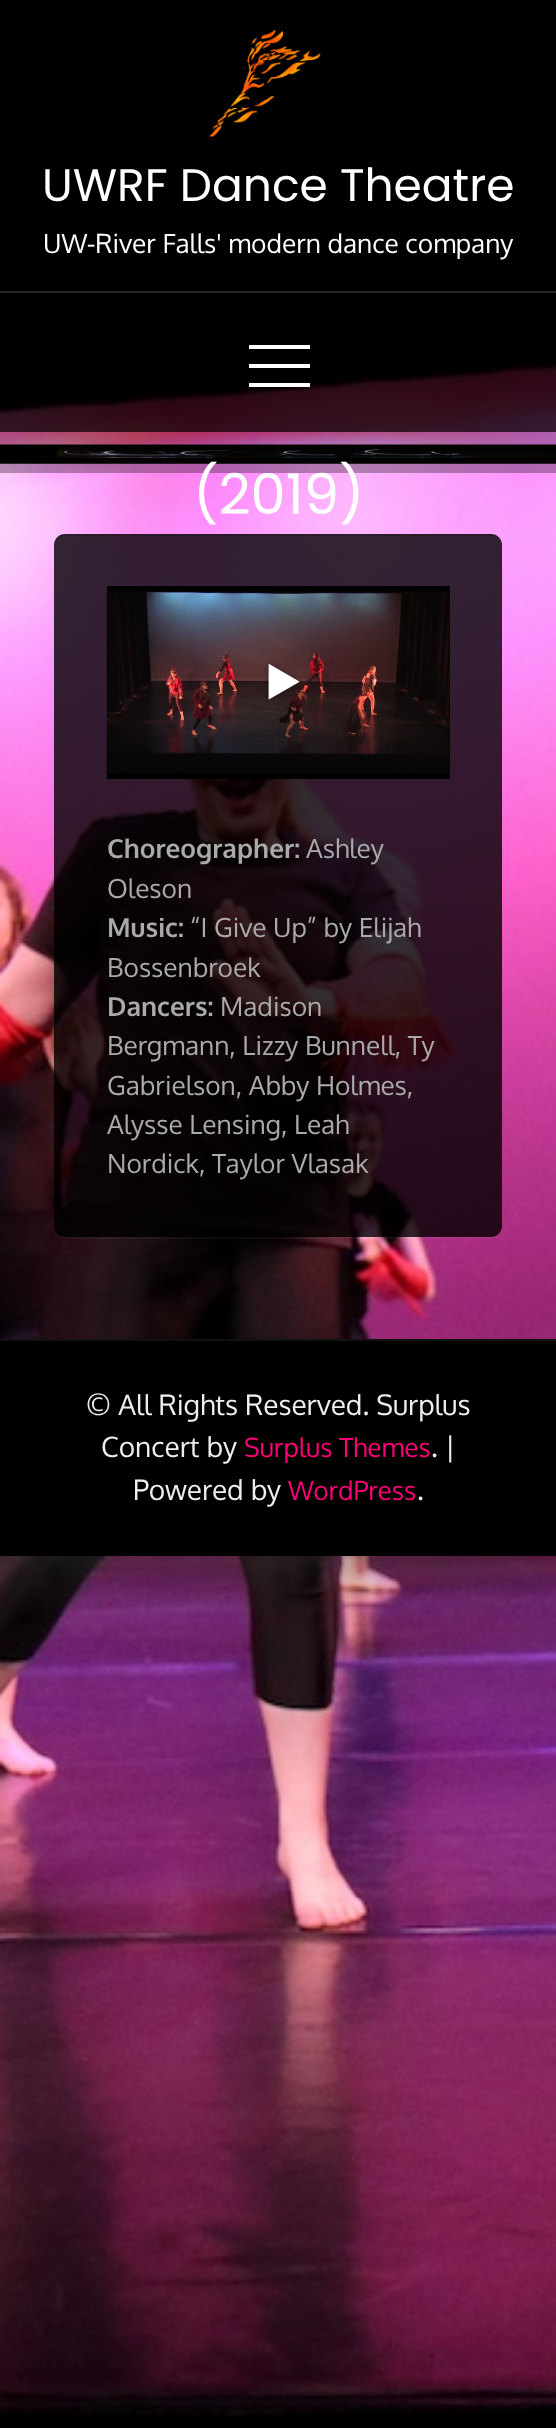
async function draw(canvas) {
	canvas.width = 556;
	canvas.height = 2428;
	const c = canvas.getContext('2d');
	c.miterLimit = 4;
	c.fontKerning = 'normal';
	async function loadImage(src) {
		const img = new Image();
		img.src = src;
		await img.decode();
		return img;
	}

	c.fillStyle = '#fff';
	c.fillRect(0, 0, 556, 2428);
	c.drawImage(await loadImage('img1.png'), 0, 0, 556, 2428);
	c.save();
	c.beginPath();
	c.rect(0, 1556, 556, 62);
	c.clip();
	c.fillStyle = '#33333378';
	c.filter = 'blur(26px)';
	c.beginPath();
	c.rect(0, 18, 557, 1555);
	c.fill();
	c.filter = 'none';
	c.restore();
	c.fillStyle = '#000000cc';
	c.fillRect(0, 361, 556, 71);
	c.fillStyle = '#262626';
	c.fillRect(0, 291, 556, 2);
	c.drawImage(await loadImage('img2.png'), 209, 29, 112, 108);
	c.font = '45.5px Poppins';
	c.fillStyle = '#fff';
	c.fillText('UWRF Dance Theatre', 42, 201);
	c.font = '26.25px Oxygen';
	c.fillText('UW-River Falls\' modern dance company', 43, 253);
	for (const [x, y, w, h, color] of [
		[249, 345, 61, 4, '#fff'],
		[249, 364, 61, 4, '#fff'],
		[249, 383, 61, 4, '#fff'],
	]) {
		c.fillStyle = color;
		c.fillRect(x, y, w, h);
	}
	c.drawImage(await loadImage('img3.png'), 0, 444, 556, 20);
	c.fillStyle = '#0000004d';
	c.fillRect(0, 432, 556, 41);
	c.font = '56px Poppins';
	c.fillStyle = '#fff';
	c.fillText('(2019)', 193, 514);
	c.fillStyle = '#ffffff0a';
	c.beginPath();
	c.moveTo(54, 545);
	c.lineTo(54, 1228);
	c.bezierCurveTo(54, 1234, 59, 1239, 65, 1239);
	c.lineTo(491, 1239);
	c.bezierCurveTo(497, 1239, 501, 1235, 502, 1229);
	c.bezierCurveTo(501, 1234, 497, 1237, 492, 1237);
	c.lineTo(65, 1237);
	c.bezierCurveTo(59, 1237, 54, 1233, 54, 1227);
	c.closePath();
	c.fill();
	c.fillStyle = '#000000cc';
	c.beginPath();
	c.roundRect(54, 534, 448, 703, 11);
	c.fill();
	c.fillStyle = '#00000026';
	c.beginPath();
	c.moveTo(65, 536);
	c.lineTo(492, 536);
	c.bezierCurveTo(498, 536, 502, 540, 502, 546);
	c.lineTo(502, 545);
	c.bezierCurveTo(502, 539, 497, 534, 491, 534);
	c.lineTo(65, 534);
	c.bezierCurveTo(59, 534, 54, 539, 54, 545);
	c.lineTo(54, 546);
	c.bezierCurveTo(54, 540, 59, 536, 65, 536);
	c.closePath();
	c.fill();
	c.fillStyle = '#000';
	c.fillRect(107, 586, 343, 193);
	c.drawImage(await loadImage('img4.png'), 106, 591, 344, 183);
	c.drawImage(await loadImage('img5.png'), 264, 662, 37, 38);
	c.font = 'bold 26.25px Oxygen';
	c.fillStyle = '#aaa';
	c.fillText('Choreographer:', 107, 858);
	c.font = '26.25px Oxygen';
	c.fillText('Ashley', 306, 858);
	c.fillText('Oleson', 107, 898);
	c.font = 'bold 26.25px Oxygen';
	c.fillText('Music:', 107, 937);
	c.font = '26.25px Oxygen';
	c.fillText('“I Give Up” by Elijah', 190, 937);
	c.fillText('Bossenbroek', 107, 977);
	c.font = 'bold 26.25px Oxygen';
	c.fillText('Dancers:', 107, 1016);
	c.font = '26.25px Oxygen';
	for (const [text, x, y] of [
		['Madison', 220, 1016],
		['Bergmann, Lizzy Bunnell, Ty', 107, 1055],
		['Gabrielson, Abby Holmes,', 107, 1095],
		['Alysse Lensing, Leah', 107, 1134],
		['Nordick, Taylor Vlasak', 107, 1173],
	]) {
		c.fillText(text, x, y);
	}
	c.fillStyle = '#000';
	c.fillRect(0, 1341, 556, 215);
	c.fillStyle = '#111';
	c.fillRect(0, 1339, 556, 2);
	c.font = '28px Oxygen';
	c.fillStyle = '#eee';
	c.fillText('© All Rights Reserved. Surplus', 86, 1415);
	c.fillText('Concert by', 101, 1457);
	c.font = '26.25px Oxygen';
	c.fillStyle = '#ff0078';
	c.fillText('Surplus Themes', 244, 1457);
	c.font = '28px Oxygen';
	c.fillStyle = '#eee';
	c.fillText('. |', 431, 1457);
	c.fillText('Powered by', 133, 1500);
	c.font = '26.25px Oxygen';
	c.fillStyle = '#ff0078';
	c.fillText('WordPress', 288, 1500);
	c.font = '28px Oxygen';
	c.fillStyle = '#eee';
	c.fillText('.', 417, 1500);
}

draw(document.querySelector('canvas'));
